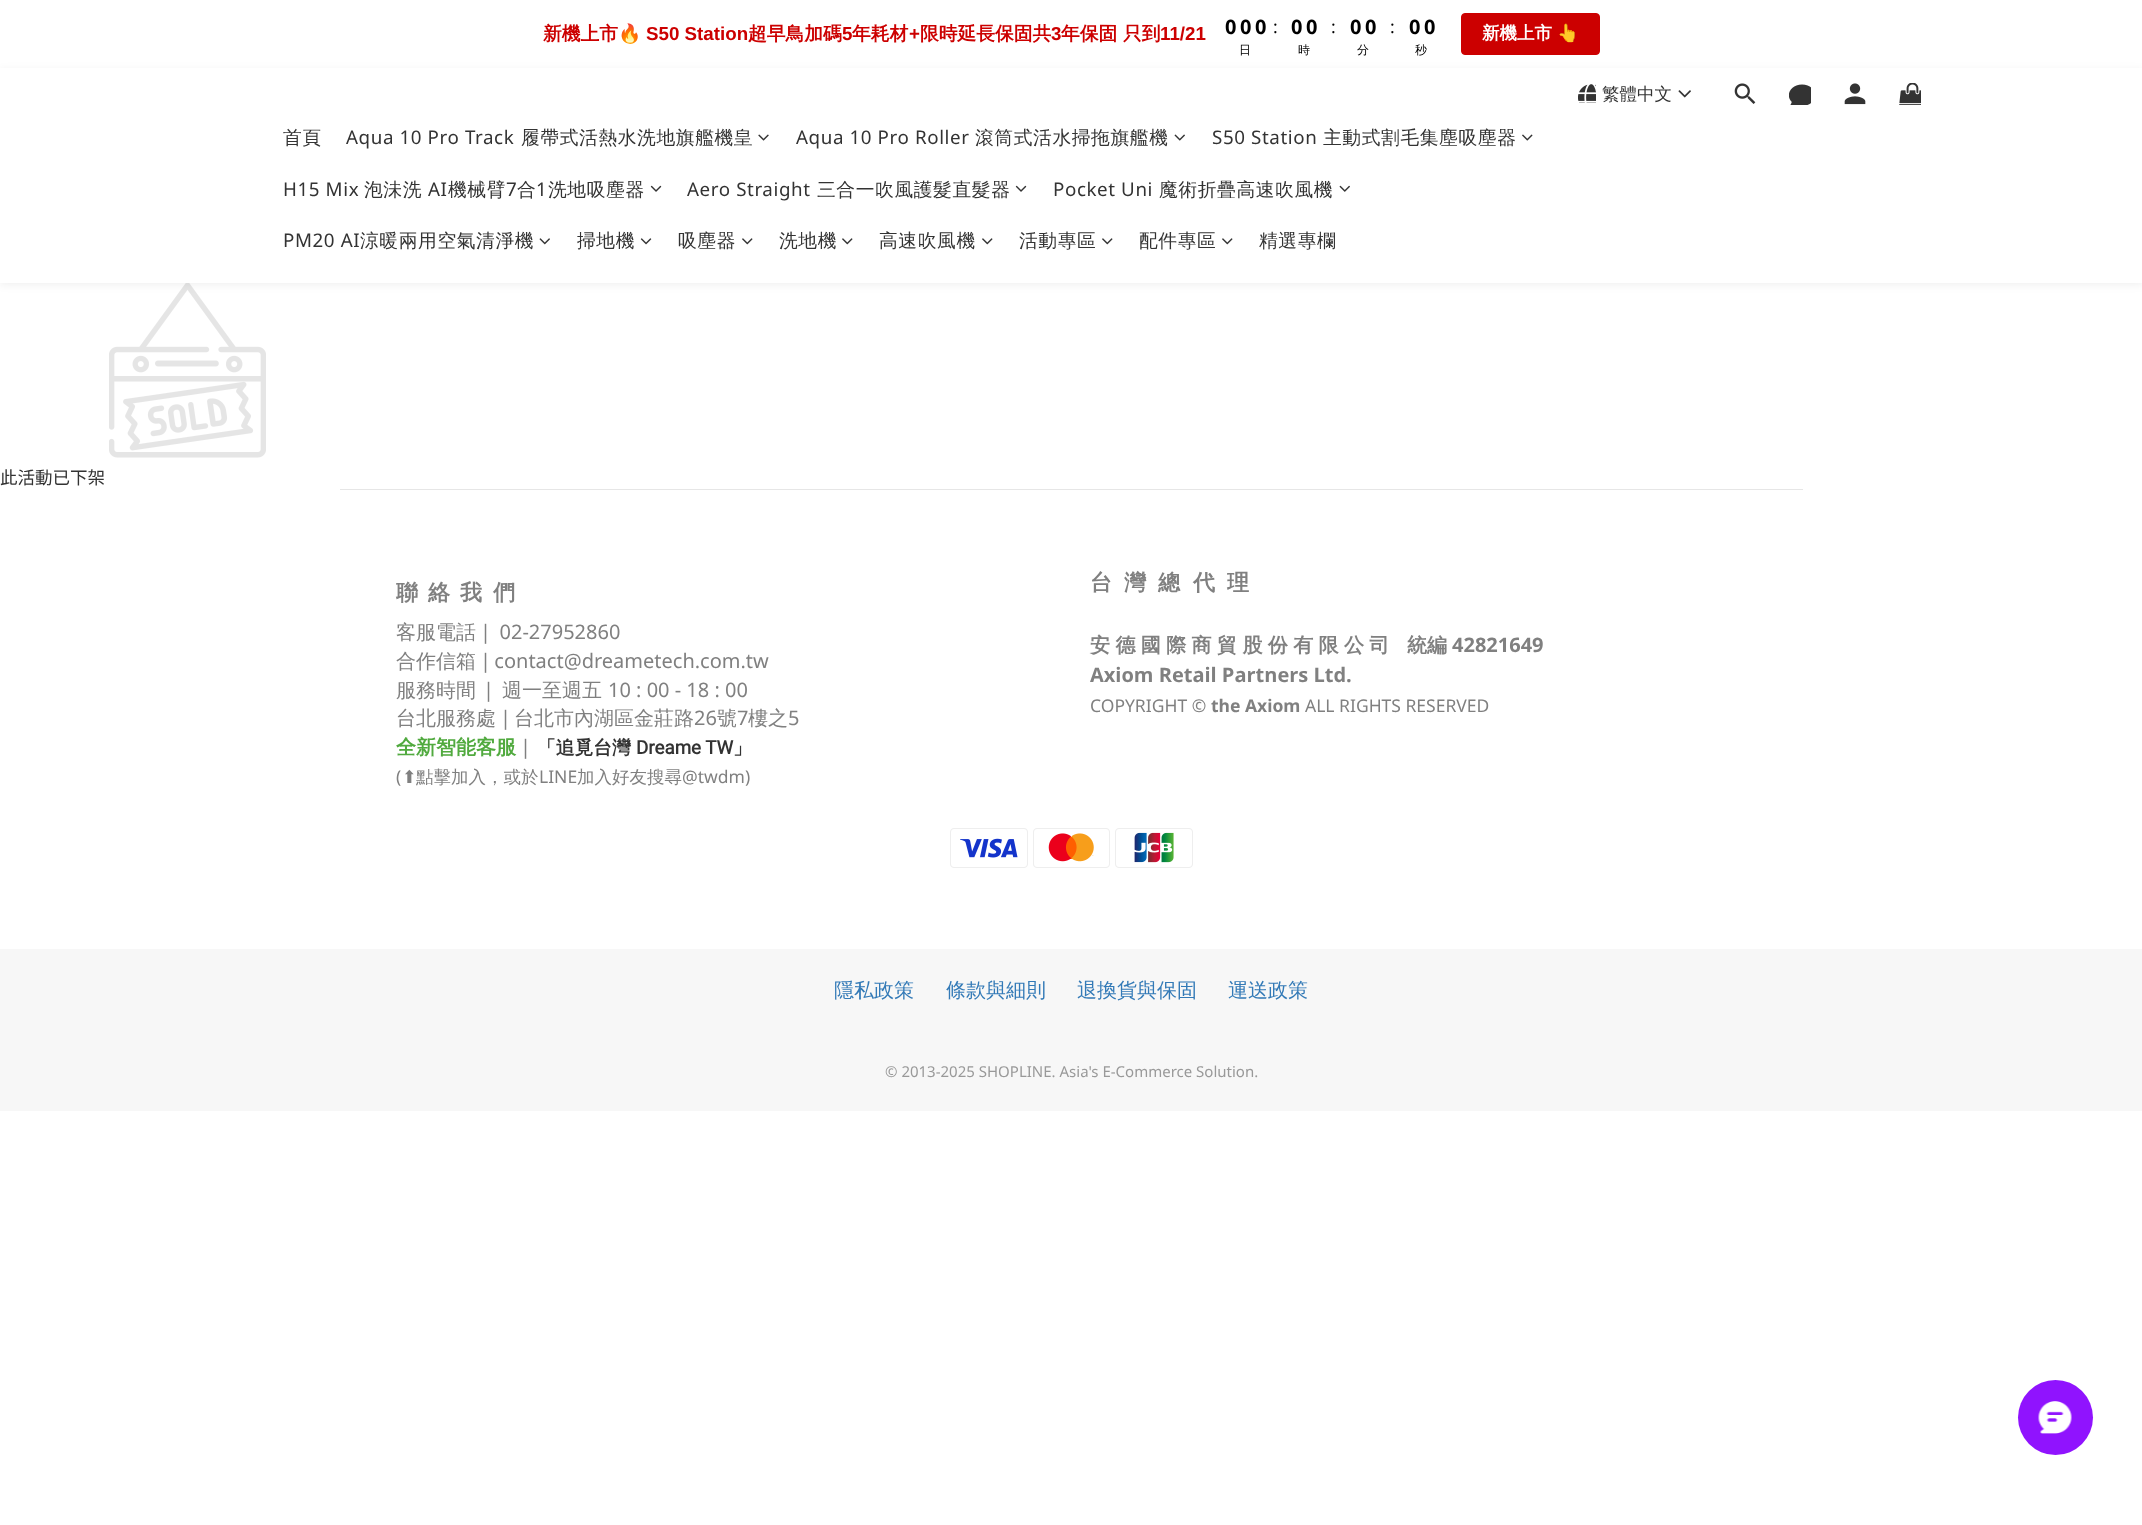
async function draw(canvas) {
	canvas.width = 2142;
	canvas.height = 1525;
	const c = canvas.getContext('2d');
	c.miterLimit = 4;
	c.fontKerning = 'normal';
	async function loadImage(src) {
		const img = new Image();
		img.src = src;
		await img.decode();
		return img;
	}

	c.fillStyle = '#fff';
	c.fillRect(0, 0, 2142, 1525);
	c.font = 'bold 18.75px WenQuanYi Zen Hei';
	c.fillStyle = '#c00';
	c.fillText('新機上市', 543, 40);
	c.font = 'bold 18.75px Noto Color Emoji';
	c.fillText('🔥', 618, 40);
	c.font = 'bold 18.75px Liberation Sans';
	c.fillText('S50 Station', 646, 40);
	c.font = 'bold 18.75px WenQuanYi Zen Hei';
	c.fillText('超早鳥加碼', 748, 40);
	c.font = 'bold 18.75px Liberation Sans';
	c.fillText('5', 842, 40);
	c.font = 'bold 18.75px WenQuanYi Zen Hei';
	c.fillText('年耗材', 852, 40);
	c.font = 'bold 18.75px Liberation Sans';
	c.fillText('+', 909, 40);
	c.font = 'bold 18.75px WenQuanYi Zen Hei';
	c.fillText('限時延長保固共', 920, 40);
	c.font = 'bold 18.75px Liberation Sans';
	c.fillText('3', 1051, 40);
	c.font = 'bold 18.75px WenQuanYi Zen Hei';
	c.fillText('年保固', 1061, 40);
	c.fillText('只到', 1123, 40);
	c.font = 'bold 18.75px Liberation Sans';
	c.fillText('11/21', 1160, 40);
	c.font = 'bold 20px Noto Sans';
	c.fillStyle = '#000';
	for (const [text, x, y] of [
		['0', 1225, 34],
		['0', 1240, 34],
		['0', 1255, 34],
	]) {
		c.fillText(text, x, y);
	}
	c.font = '500 12px WenQuanYi Zen Hei';
	c.fillText('日', 1239, 54);
	c.font = '17.5px Noto Sans';
	c.fillText(':', 1273, 33);
	c.font = 'bold 20px Noto Sans';
	c.fillText('0', 1291, 34);
	c.fillText('0', 1306, 34);
	c.font = '500 12px WenQuanYi Zen Hei';
	c.fillText('時', 1298, 54);
	c.font = '17.5px Noto Sans';
	c.fillText(':', 1331, 33);
	c.font = 'bold 20px Noto Sans';
	c.fillText('0', 1350, 34);
	c.fillText('0', 1365, 34);
	c.font = '500 12px WenQuanYi Zen Hei';
	c.fillText('分', 1357, 54);
	c.font = '17.5px Noto Sans';
	c.fillText(':', 1390, 33);
	c.font = 'bold 20px Noto Sans';
	c.fillText('0', 1409, 34);
	c.fillText('0', 1424, 34);
	c.font = '500 12px WenQuanYi Zen Hei';
	c.fillText('秒', 1415, 54);
	c.fillStyle = '#c00';
	c.beginPath();
	c.roundRect(1461.5, 13.5, 138, 41, 3.5);
	c.fill();
	c.strokeStyle = '#c00';
	c.stroke();
	c.font = 'bold 17.5px WenQuanYi Zen Hei';
	c.fillStyle = '#fff';
	c.fillText('新機上市', 1482, 39);
	c.font = 'bold 17.5px Noto Color Emoji';
	c.fillText('👆', 1557, 39);
	c.drawImage(await loadImage('img15.png'), 109, 283, 157, 175);
	c.fillStyle = '#0000000f';
	c.filter = 'blur(4px)';
	c.beginPath();
	c.rect(0, 70, 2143, 215);
	c.fill();
	c.filter = 'none';
	c.fillStyle = '#fff';
	c.fillRect(0, 68, 2142, 215);
	c.drawImage(await loadImage('img1.png'), 1578, 84, 18, 19);
	c.font = '500 17.5px WenQuanYi Zen Hei';
	c.fillStyle = '#333';
	c.fillText('繁體中文', 1602, 100);
	c.drawImage(await loadImage('img2.png'), 1678, 90, 13, 8);
	c.drawImage(await loadImage('img3.png'), 1734, 83, 22, 21);
	c.drawImage(await loadImage('img4.png'), 1789, 84, 22, 21);
	c.drawImage(await loadImage('img5.png'), 1844, 83, 22, 22);
	c.drawImage(await loadImage('img6.png'), 1899, 83, 22, 22);
	c.letterSpacing = '0.6px';
	c.font = '500 18.75px WenQuanYi Zen Hei';
	c.fillText('首頁', 283, 144);
	c.font = '18.75px Noto Sans';
	c.fillText('Aqua 10 Pro Track', 346, 144);
	c.font = '500 18.75px WenQuanYi Zen Hei';
	c.fillText('履帶式活熱水洗地旗艦機皇', 521, 144);
	c.drawImage(await loadImage('img7.png'), 758, 134, 11, 7);
	c.font = '18.75px Noto Sans';
	c.fillText('Aqua 10 Pro Roller', 796, 144);
	c.font = '500 18.75px WenQuanYi Zen Hei';
	c.fillText('滾筒式活水掃拖旗艦機', 975, 144);
	c.drawImage(await loadImage('img8.png'), 1174, 134, 11, 7);
	c.font = '18.75px Noto Sans';
	c.fillText('S50 Station', 1212, 144);
	c.font = '500 18.75px WenQuanYi Zen Hei';
	c.fillText('主動式割毛集塵吸塵器', 1323, 144);
	c.drawImage(await loadImage('img9.png'), 1522, 134, 11, 7);
	c.font = '18.75px Noto Sans';
	c.fillText('H15 Mix', 283, 196);
	c.font = '500 18.75px WenQuanYi Zen Hei';
	c.fillText('泡沬洗', 364, 196);
	c.font = '18.75px Noto Sans';
	c.fillText('AI', 428, 196);
	c.font = '500 18.75px WenQuanYi Zen Hei';
	c.fillText('機械臂', 448, 196);
	c.font = '18.75px Noto Sans';
	c.fillText('7', 506, 196);
	c.font = '500 18.75px WenQuanYi Zen Hei';
	c.fillText('合', 517, 196);
	c.font = '18.75px Noto Sans';
	c.fillText('1', 536, 196);
	c.font = '500 18.75px WenQuanYi Zen Hei';
	c.fillText('洗地吸塵器', 548, 196);
	c.drawImage(await loadImage('img10.png'), 650, 185, 12, 7);
	c.font = '18.75px Noto Sans';
	c.fillText('Aero Straight', 687, 196);
	c.font = '500 18.75px WenQuanYi Zen Hei';
	c.fillText('三合一吹風護髮直髮器', 817, 196);
	c.drawImage(await loadImage('img10.png'), 1015, 185, 12, 7);
	c.font = '18.75px Noto Sans';
	c.fillText('Pocket Uni', 1053, 196);
	c.font = '500 18.75px WenQuanYi Zen Hei';
	c.fillText('魔術折疊高速吹風機', 1159, 196);
	c.drawImage(await loadImage('img11.png'), 1339, 185, 11, 7);
	c.font = '18.75px Noto Sans';
	c.fillText('PM20 AI', 283, 247);
	c.font = '500 18.75px WenQuanYi Zen Hei';
	c.fillText('涼暖兩用空氣清淨機', 360, 247);
	c.drawImage(await loadImage('img12.png'), 539, 238, 11, 7);
	c.fillText('掃地機', 577, 247);
	c.drawImage(await loadImage('img13.png'), 640, 238, 12, 7);
	c.fillText('吸塵器', 678, 247);
	c.drawImage(await loadImage('img14.png'), 742, 238, 11, 7);
	c.fillText('洗地機', 779, 247);
	c.drawImage(await loadImage('img14.png'), 842, 238, 11, 7);
	c.fillText('高速吹風機', 879, 247);
	c.drawImage(await loadImage('img14.png'), 982, 238, 11, 7);
	c.fillText('活動專區', 1019, 247);
	c.drawImage(await loadImage('img14.png'), 1102, 238, 11, 7);
	c.fillText('配件專區', 1139, 247);
	c.drawImage(await loadImage('img14.png'), 1222, 238, 11, 7);
	c.fillText('精選專欄', 1259, 247);
	c.letterSpacing = '0px';
	c.font = '17.5px Noto Sans TC';
	c.fillText('此活動已下架', 0, 484);
	c.fillStyle = '#e6e6e6';
	c.fillRect(340, 489, 1463, 1);
	c.font = 'bold 22px WenQuanYi Zen Hei';
	c.fillStyle = '#808080';
	for (const [text, x, y] of [
		['聯', 396, 600],
		['絡', 428, 600],
		['我', 460, 600],
		['們', 493, 600],
	]) {
		c.fillText(text, x, y);
	}
	c.font = '500 20px WenQuanYi Zen Hei';
	c.fillText('客服電話', 396, 639);
	c.font = '20px Noto Sans';
	c.fillText('|  02-27952860', 480, 639);
	c.font = '500 20px WenQuanYi Zen Hei';
	c.fillText('合作信箱', 396, 668);
	c.font = '20px Noto Sans';
	c.fillText('| contact@dreametech.com.tw', 480, 668);
	c.font = '500 20px WenQuanYi Zen Hei';
	c.fillText('服務時間', 396, 697);
	c.font = '20px Noto Sans';
	c.fillText('|', 483, 697);
	c.font = '500 20px WenQuanYi Zen Hei';
	c.fillText('週一至週五', 502, 697);
	c.font = '20px Noto Sans';
	c.fillText('10 : 00 - 18 : 00', 608, 697);
	c.font = '500 20px WenQuanYi Zen Hei';
	c.fillText('台北服務處', 396, 725);
	c.font = '20px Noto Sans';
	c.fillText('|', 500, 725);
	c.font = '500 20px WenQuanYi Zen Hei';
	c.fillText('台北市內湖區金莊路', 514, 725);
	c.font = '20px Noto Sans';
	c.fillText('26', 694, 725);
	c.font = '500 20px WenQuanYi Zen Hei';
	c.fillText('號', 717, 725);
	c.font = '20px Noto Sans';
	c.fillText('7', 737, 725);
	c.font = '500 20px WenQuanYi Zen Hei';
	c.fillText('樓之', 748, 725);
	c.font = '20px Noto Sans';
	c.fillText('5', 788, 725);
	c.font = 'bold 20px WenQuanYi Zen Hei';
	c.fillStyle = '#51aa3f';
	c.fillText('全新智能客服', 396, 754);
	c.font = '20px Noto Sans';
	c.fillStyle = '#808080';
	c.fillText('|', 520, 754);
	c.font = 'bold 18.75px WenQuanYi Zen Hei';
	c.fillStyle = '#333';
	c.fillText('「追覓台灣', 537, 754);
	c.font = 'bold 18.75px Roboto';
	c.fillText('Dreame TW', 636, 754);
	c.font = 'bold 18.75px WenQuanYi Zen Hei';
	c.fillText('」', 733, 754);
	c.font = '17.5px Noto Sans';
	c.fillStyle = '#808080';
	c.fillText('(', 396, 783);
	c.font = '17.5px DejaVu Sans';
	c.fillText('⬆', 402, 783);
	c.font = '500 17.5px WenQuanYi Zen Hei';
	c.fillText('點擊加入，或於', 416, 783);
	c.font = '17.5px Noto Sans';
	c.fillText('LINE', 539, 783);
	c.font = '500 17.5px WenQuanYi Zen Hei';
	c.fillText('加入好友搜尋', 577, 783);
	c.font = '17.5px Noto Sans';
	c.fillText('@twdm)', 682, 783);
	c.font = 'bold 22px WenQuanYi Zen Hei';
	for (const [text, x, y] of [
		['台', 1090, 590],
		['灣', 1124, 590],
		['總', 1158, 590],
		['代', 1193, 590],
		['理', 1227, 590],
	]) {
		c.fillText(text, x, y);
	}
	c.wordSpacing = '-0.6px';
	c.font = 'bold 20px WenQuanYi Zen Hei';
	c.fillText('安 德 國 際 商 貿 股 份 有 限 公 司', 1090, 652);
	c.wordSpacing = '0px';
	c.fillText('統編', 1407, 652);
	c.font = 'bold 20px Noto Sans';
	c.fillText('42821649', 1452, 652);
	c.font = 'bold 20px Open Sans';
	c.fillText('Axiom Retail Partners Ltd.', 1090, 682);
	c.font = '17.5px Noto Sans';
	c.fillText('COPYRIGHT ©', 1090, 712);
	c.font = 'bold 17.5px Noto Sans';
	c.fillText('the Axiom', 1211, 712);
	c.font = '17.5px Noto Sans';
	c.fillText('ALL RIGHTS RESERVED', 1305, 712);
	c.drawImage(await loadImage('img16.png'), 950, 828, 78, 40);
	c.drawImage(await loadImage('img17.png'), 1033, 828, 77, 40);
	c.drawImage(await loadImage('img18.png'), 1115, 828, 78, 40);
	c.fillStyle = '#f7f7f7';
	c.fillRect(0, 949, 2142, 162);
	c.font = '500 20px WenQuanYi Zen Hei';
	c.fillStyle = '#337ab7';
	for (const [text, x, y] of [
		['隱私政策', 834, 997],
		['條款與細則', 946, 997],
		['退換貨與保固', 1077, 997],
		['運送政策', 1228, 997],
	]) {
		c.fillText(text, x, y);
	}
	c.font = '15px Noto Sans';
	c.fillStyle = '#999';
	c.fillText('© 2013-2025 SHOPLINE. Asia\'s E-Commerce Solution.', 885, 1077);
	c.fillStyle = '#9013fe';
	c.beginPath();
	c.arc(2055.5, 1417.5, 37.5, 0, 2 * Math.PI);
	c.fill();
	c.drawImage(await loadImage('img19.png'), 2038, 1401, 34, 33);
}

draw(document.querySelector('canvas'));
